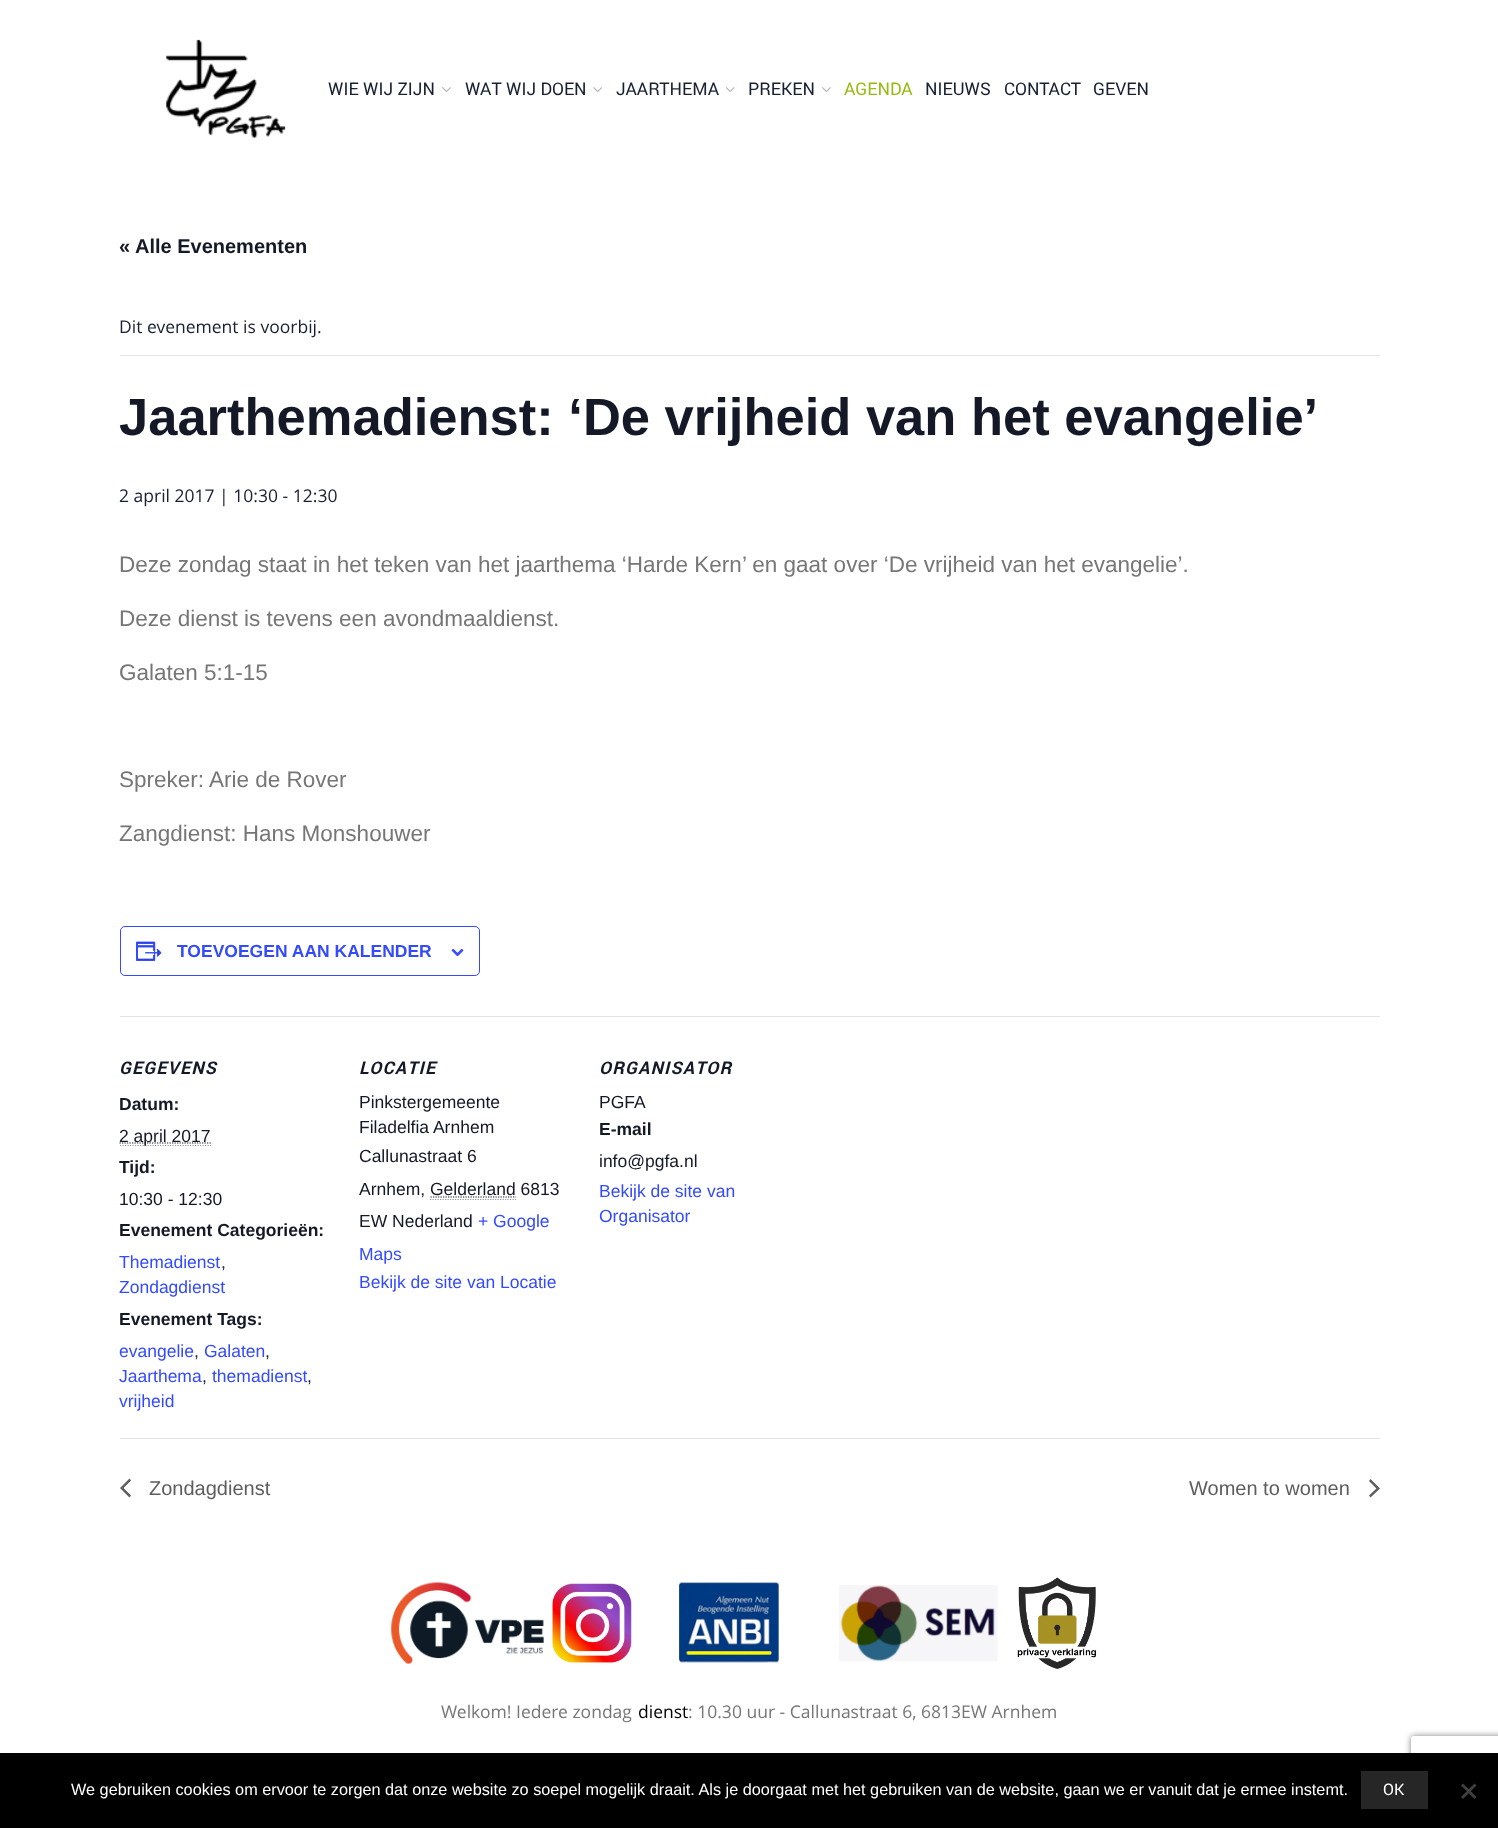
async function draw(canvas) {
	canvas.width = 1498;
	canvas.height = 1828;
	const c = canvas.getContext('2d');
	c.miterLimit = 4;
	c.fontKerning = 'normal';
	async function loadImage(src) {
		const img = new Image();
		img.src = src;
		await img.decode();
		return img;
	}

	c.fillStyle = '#fff';
	c.fillRect(0, 0, 1498, 1828);
	c.drawImage(await loadImage('img1.png'), 166, 39, 120, 99);
	c.font = '17.5px Roboto';
	c.fillStyle = '#192033';
	c.fillText('WIE WIJ ZIJN', 328, 95);
	c.drawImage(await loadImage('img2.png'), 442, 87, 9, 6);
	c.fillText('WAT WIJ DOEN', 465, 95);
	c.drawImage(await loadImage('img3.png'), 593, 87, 9, 6);
	c.fillText('JAARTHEMA', 616, 95);
	c.drawImage(await loadImage('img4.png'), 725, 87, 10, 6);
	c.fillText('PREKEN', 748, 95);
	c.drawImage(await loadImage('img2.png'), 822, 87, 9, 6);
	c.fillStyle = '#96bb15';
	c.fillText('AGENDA', 844, 95);
	c.fillStyle = '#192033';
	for (const [text, x, y] of [
		['NIEUWS', 925, 95],
		['CONTACT', 1004, 95],
		['GEVEN', 1093, 95],
	]) {
		c.fillText(text, x, y);
	}
	c.font = 'bold 20px Liberation Sans';
	c.fillStyle = '#141827';
	c.fillText('« Alle Evenementen', 119, 253);
	c.fillStyle = '#e4e4e4';
	c.fillRect(120, 355, 1260, 1);
	c.font = '17.5px Open Sans';
	c.fillStyle = '#192033';
	c.fillText('Dit evenement is voorbij.', 119, 333);
	c.font = 'bold 52.5px Liberation Sans';
	c.fillStyle = '#141827';
	c.fillText('Jaarthemadienst: ‘De vrijheid van het evangelie’', 119, 435);
	c.font = '17.5px Open Sans';
	c.fillStyle = '#192033';
	c.fillText('2 april 2017 | 10:30 - 12:30', 119, 502);
	c.font = '22.5px Liberation Sans';
	c.fillStyle = '#767676';
	for (const [text, x, y] of [
		['Deze zondag staat in het teken van het jaarthema ‘Harde Kern’ en gaat over ‘De vrijheid van het evangelie’.', 119, 572],
		['Deze dienst is tevens een avondmaaldienst.', 119, 626],
		['Galaten 5:1-15', 119, 680],
		['Spreker: Arie de Rover', 119, 787],
		['Zangdienst: Hans Monshouwer', 119, 841],
	]) {
		c.fillText(text, x, y);
	}
	c.beginPath();
	c.roundRect(120.5, 926.5, 359, 49, 4.5);
	c.strokeStyle = '#334aff';
	c.stroke();
	c.drawImage(await loadImage('img5.png'), 136, 941, 26, 20);
	c.font = 'bold 17.5px Liberation Sans';
	c.fillStyle = '#334aff';
	c.fillText('TOEVOEGEN AAN KALENDER', 177, 957);
	c.drawImage(await loadImage('img6.png'), 451, 949, 13, 7);
	c.fillStyle = '#e4e4e4';
	c.fillRect(120, 1016, 1260, 1);
	c.letterSpacing = '1.25px';
	c.font = 'italic bold 17.5px Roboto';
	c.fillStyle = '#141827';
	c.fillText('GEGEVENS', 119, 1074);
	c.letterSpacing = '0px';
	c.font = 'bold 17.5px Liberation Sans';
	c.fillText('Datum:', 119, 1110);
	c.beginPath();
	c.moveTo(120, 1145.5);
	c.lineTo(211, 1145.5);
	c.strokeStyle = '#999';
	c.lineWidth = 1.2;
	c.setLineDash([1.25, 1.25]);
	c.stroke();
	c.beginPath();
	c.moveTo(119.5, 1143);
	c.lineTo(211, 1143);
	c.strokeStyle = '#141827';
	c.stroke();
	c.font = '17.5px Liberation Sans';
	c.fillText('2 april 2017', 119, 1142);
	c.font = 'bold 17.5px Liberation Sans';
	c.fillText('Tijd:', 119, 1173);
	c.font = '17.5px Liberation Sans';
	c.fillText('10:30 - 12:30', 119, 1205);
	c.font = 'bold 17.5px Liberation Sans';
	c.fillText('Evenement Categorieën:', 119, 1236);
	c.font = '17.5px Liberation Sans';
	c.fillStyle = '#334aff';
	c.fillText('Themadienst', 119, 1268);
	c.fillStyle = '#141827';
	c.fillText(',', 221, 1268);
	c.fillStyle = '#334aff';
	c.fillText('Zondagdienst', 119, 1293);
	c.font = 'bold 17.5px Liberation Sans';
	c.fillStyle = '#141827';
	c.fillText('Evenement Tags:', 119, 1325);
	c.font = '17.5px Liberation Sans';
	c.fillStyle = '#334aff';
	c.fillText('evangelie', 119, 1357);
	c.fillStyle = '#141827';
	c.fillText(',', 194, 1357);
	c.fillStyle = '#334aff';
	c.fillText('Galaten', 204, 1357);
	c.fillStyle = '#141827';
	c.fillText(',', 265, 1357);
	c.fillStyle = '#334aff';
	c.fillText('Jaarthema', 119, 1382);
	c.fillStyle = '#141827';
	c.fillText(',', 202, 1382);
	c.fillStyle = '#334aff';
	c.fillText('themadienst', 212, 1382);
	c.fillStyle = '#141827';
	c.fillText(',', 307, 1382);
	c.fillStyle = '#334aff';
	c.fillText('vrijheid', 119, 1407);
	c.letterSpacing = '1.25px';
	c.font = 'italic bold 17.5px Roboto';
	c.fillStyle = '#141827';
	c.fillText('LOCATIE', 359, 1074);
	c.letterSpacing = '0px';
	c.font = '17.5px Liberation Sans';
	for (const [text, x, y] of [
		['Pinkstergemeente', 359, 1108],
		['Filadelfia Arnhem', 359, 1133],
		['Callunastraat 6', 359, 1162],
		['Arnhem, Gelderland 6813', 359, 1195],
	]) {
		c.fillText(text, x, y);
	}
	c.beginPath();
	c.moveTo(430, 1199.5);
	c.lineTo(516, 1199.5);
	c.strokeStyle = '#999';
	c.stroke();
	c.beginPath();
	c.moveTo(430.5, 1197);
	c.lineTo(516, 1197);
	c.strokeStyle = '#141827';
	c.stroke();
	c.fillText('EW Nederland', 359, 1227);
	c.fillStyle = '#334aff';
	for (const [text, x, y] of [
		['+ Google', 478, 1227],
		['Maps', 359, 1260],
		['Bekijk de site van Locatie', 359, 1288],
	]) {
		c.fillText(text, x, y);
	}
	c.letterSpacing = '1.25px';
	c.font = 'italic bold 17.5px Roboto';
	c.fillStyle = '#141827';
	c.fillText('ORGANISATOR', 599, 1074);
	c.letterSpacing = '0px';
	c.font = '17.5px Liberation Sans';
	c.fillText('PGFA', 599, 1108);
	c.font = 'bold 17.5px Liberation Sans';
	c.fillText('E-mail', 599, 1135);
	c.font = '17.5px Liberation Sans';
	c.fillText('info@pgfa.nl', 599, 1167);
	c.fillStyle = '#334aff';
	c.fillText('Bekijk de site van', 599, 1197);
	c.fillText('Organisator', 599, 1222);
	c.fillStyle = '#e4e4e4';
	c.fillRect(120, 1438, 1260, 1);
	c.fillStyle = '#5d5d5d';
	c.beginPath();
	c.moveTo(131, 1495.5);
	c.lineTo(129.5, 1497.5);
	c.lineTo(120, 1488);
	c.lineTo(129.5, 1478.5);
	c.lineTo(131, 1480.5);
	c.lineTo(123.5, 1488);
	c.closePath();
	c.fill();
	c.font = '20px Liberation Sans';
	c.fillText('Zondagdienst', 149, 1495);
	c.fillText('Women to women', 1189, 1495);
	c.beginPath();
	c.moveTo(1369, 1481);
	c.lineTo(1370.5, 1479);
	c.lineTo(1380, 1488.5);
	c.lineTo(1370.5, 1497.5);
	c.lineTo(1369, 1495.5);
	c.lineTo(1376.5, 1488.5);
	c.closePath();
	c.fill();
	c.drawImage(await loadImage('img7.png'), 391, 1582, 153, 82);
	c.drawImage(await loadImage('img8.png'), 552, 1583, 80, 80);
	c.drawImage(await loadImage('img9.png'), 679, 1582, 100, 81);
	c.drawImage(await loadImage('img10.png'), 839, 1585, 159, 77);
	c.drawImage(await loadImage('img11.png'), 1017, 1577, 80, 92);
	c.font = '17.5px Open Sans';
	c.fillStyle = '#767676';
	c.fillText('Welkom! Iedere zondag', 441, 1718);
	c.fillStyle = '#000';
	c.fillText('dienst', 638, 1718);
	c.fillStyle = '#767676';
	c.fillText(': 10.30 uur - Callunastraat 6, 6813EW Arnhem', 688, 1718);
	c.save();
	c.beginPath();
	c.moveTo(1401, 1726);
	c.lineTo(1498, 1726);
	c.lineTo(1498, 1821);
	c.lineTo(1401, 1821);
	c.closePath();
	c.moveTo(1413.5, 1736);
	c.lineTo(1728.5, 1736);
	c.bezierCurveTo(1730, 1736, 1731, 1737, 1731, 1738.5);
	c.lineTo(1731, 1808.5);
	c.bezierCurveTo(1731, 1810, 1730, 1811, 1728.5, 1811);
	c.lineTo(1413.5, 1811);
	c.bezierCurveTo(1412, 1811, 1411, 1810, 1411, 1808.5);
	c.lineTo(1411, 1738.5);
	c.bezierCurveTo(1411, 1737, 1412, 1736, 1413.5, 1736);
	c.closePath();
	c.clip('evenodd');
	c.fillStyle = '#808080';
	c.filter = 'blur(3px)';
	c.beginPath();
	c.roundRect(1411, 1736, 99, 75, 2.5);
	c.fill();
	c.filter = 'none';
	c.restore();
	c.fillStyle = '#000';
	c.fillRect(0, 1753, 1498, 75);
	c.font = '16.25px Liberation Sans';
	c.fillStyle = '#fff';
	c.fillText('We gebruiken cookies om ervoor te zorgen dat onze website zo soepel mogelijk draait. Als je doorgaat met het gebruiken van de website, gaan we er vanuit dat je ermee instemt.', 71, 1795);
	c.fillStyle = '#262626';
	c.fillRect(1361, 1771, 67, 38);
	c.font = '16px Roboto';
	c.fillStyle = '#fff';
	c.fillText('OK', 1383, 1795);
	c.fillStyle = '#404040';
	c.beginPath();
	c.moveTo(1474.5, 1783.5);
	c.lineTo(1476.5, 1785.5);
	c.lineTo(1463, 1799);
	c.lineTo(1461, 1797);
	c.closePath();
	c.fill();
	c.beginPath();
	c.moveTo(1461, 1785.5);
	c.lineTo(1463, 1783.5);
	c.lineTo(1476.5, 1797);
	c.lineTo(1474.5, 1799);
	c.closePath();
	c.fill();
}

draw(document.querySelector('canvas'));
